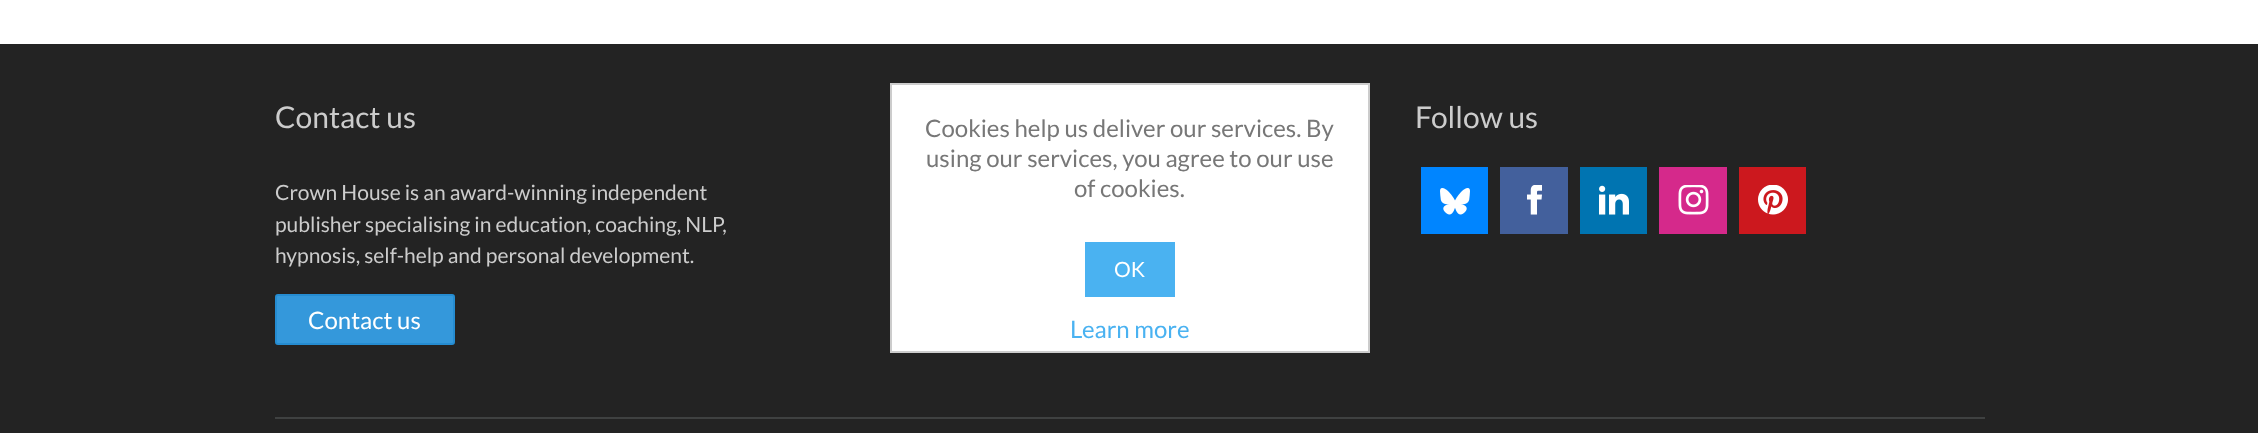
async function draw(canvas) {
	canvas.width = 2258;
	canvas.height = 433;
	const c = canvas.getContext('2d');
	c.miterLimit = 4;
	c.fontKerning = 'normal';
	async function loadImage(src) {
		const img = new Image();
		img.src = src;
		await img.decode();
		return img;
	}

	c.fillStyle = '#fff';
	c.fillRect(0, 0, 2258, 433);
	c.fillStyle = '#232323';
	c.fillRect(0, 44, 2258, 389);
	c.fillStyle = '#3f4141';
	c.fillRect(275, 417, 1710, 2);
	c.font = '30px Lato';
	c.fillStyle = '#ccc';
	c.fillText('Contact us', 275, 128);
	c.font = '21px Lato';
	for (const [text, x, y] of [
		['Crown House is an award-winning independent', 275, 200],
		['publisher specialising in education, coaching, NLP,', 275, 232],
		['hypnosis, self-help and personal development.', 275, 263],
	]) {
		c.fillText(text, x, y);
	}
	c.fillStyle = '#3498db';
	c.beginPath();
	c.roundRect(276, 295, 178, 49, 2);
	c.fill();
	c.strokeStyle = '#258cd1';
	c.lineWidth = 2;
	c.stroke();
	c.font = '24px Lato';
	c.fillStyle = '#fff';
	c.fillText('Contact us', 308, 329);
	c.font = '30px Lato';
	c.fillStyle = '#ccc';
	c.fillText('Follow us', 1415, 128);
	c.fillStyle = '#0085ff';
	c.fillRect(1421, 167, 67, 67);
	c.drawImage(await loadImage('img1.png'), 1440, 188, 30, 27);
	c.fillStyle = '#43609c';
	c.fillRect(1500, 167, 68, 67);
	c.drawImage(await loadImage('img2.png'), 1527, 185, 15, 30);
	c.fillStyle = '#0074b1';
	c.fillRect(1580, 167, 67, 67);
	c.drawImage(await loadImage('img3.png'), 1599, 185, 30, 30);
	c.fillStyle = '#d5298b';
	c.fillRect(1659, 167, 68, 67);
	c.drawImage(await loadImage('img4.png'), 1678, 185, 31, 30);
	c.fillStyle = '#cc181e';
	c.fillRect(1739, 167, 67, 67);
	c.drawImage(await loadImage('img5.png'), 1758, 185, 30, 30);
	c.fillStyle = '#fff';
	c.beginPath();
	c.rect(891, 84, 478, 268);
	c.fill();
	c.strokeStyle = '#ccc';
	c.stroke();
	c.font = '24px Lato';
	c.fillStyle = '#777';
	for (const [text, x, y] of [
		['Cookies help us deliver our services. By', 925, 137],
		['using our services, you agree to our use', 926, 167],
		['of cookies.', 1074, 197],
	]) {
		c.fillText(text, x, y);
	}
	c.fillStyle = '#4ab2f1';
	c.fillRect(1085, 242, 90, 55);
	c.font = '21px Lato';
	c.fillStyle = '#fff';
	c.fillText('OK', 1114, 277);
	c.font = '24px Lato';
	c.fillStyle = '#4ab2f1';
	c.fillText('Learn more', 1070, 338);
}

draw(document.querySelector('canvas'));
